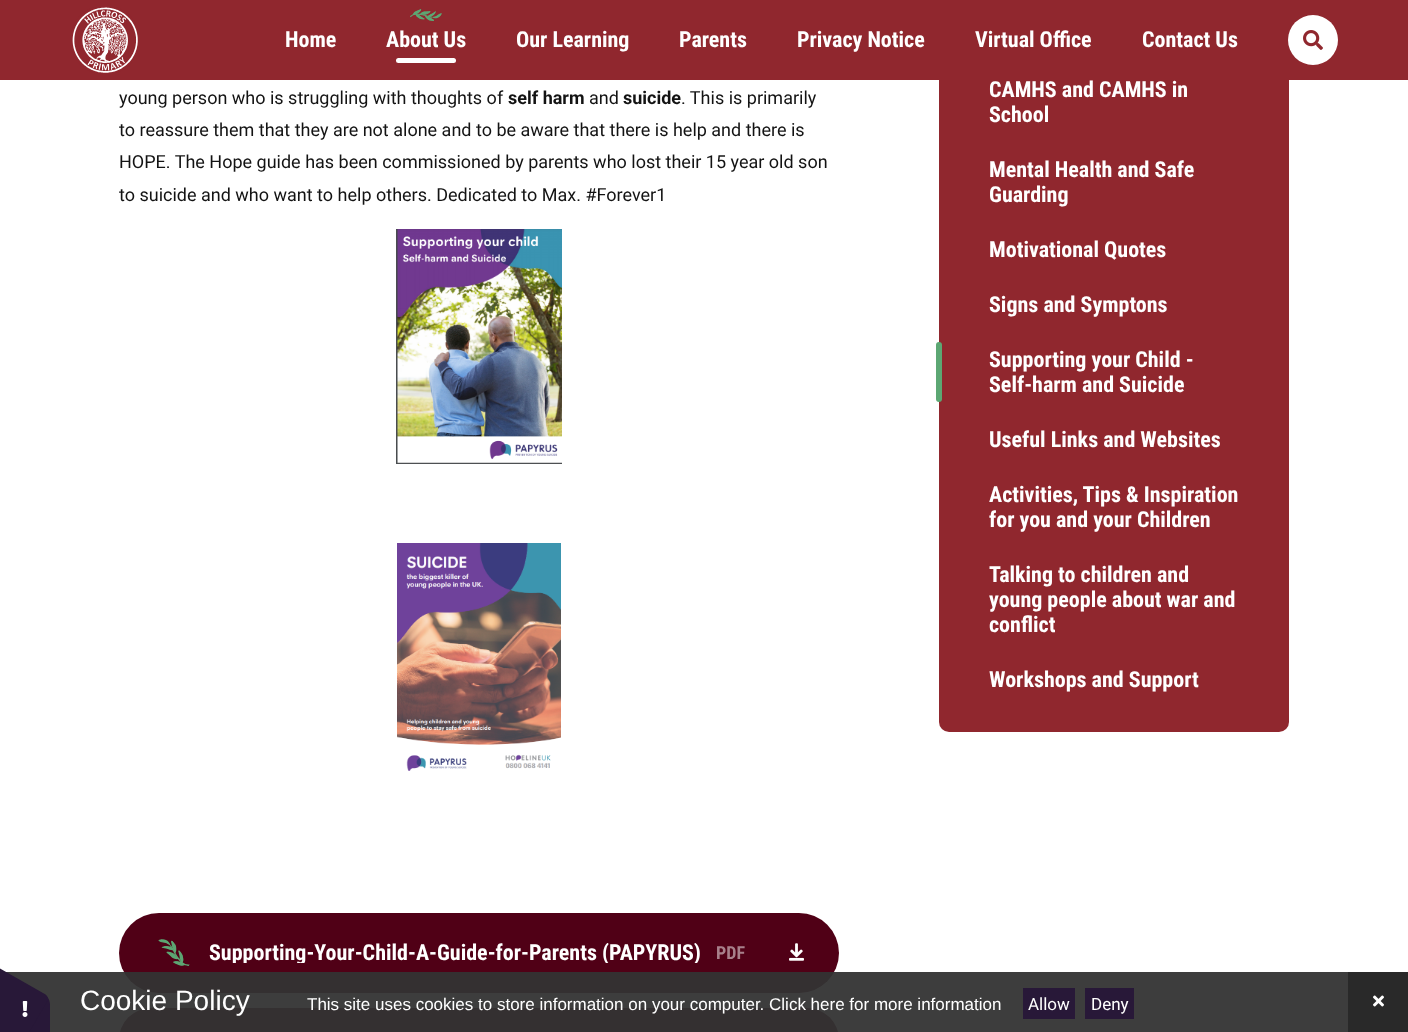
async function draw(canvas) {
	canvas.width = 1408;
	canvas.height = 1032;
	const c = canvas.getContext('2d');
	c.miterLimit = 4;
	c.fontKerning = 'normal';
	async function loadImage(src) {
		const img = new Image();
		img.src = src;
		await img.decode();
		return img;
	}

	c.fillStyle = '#fff';
	c.fillRect(0, 0, 1408, 1032);
	c.fillStyle = '#90272e';
	c.beginPath();
	c.roundRect(939, -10, 350, 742, 10);
	c.fill();
	c.fillRect(0, 0, 1408, 80);
	c.drawImage(await loadImage('img1.png'), 72, 7, 66, 66);
	c.font = 'bold 22px Roboto Condensed';
	c.fillStyle = '#fff';
	c.fillText('Home', 285, 47);
	c.drawImage(await loadImage('img2.png'), 410, 9, 32, 12);
	c.fillText('About Us', 386, 47);
	c.beginPath();
	c.roundRect(396, 58, 60, 5, 2.5);
	c.fill();
	for (const [text, x, y] of [
		['Our Learning', 516, 47],
		['Parents', 679, 47],
		['Privacy Notice', 797, 47],
		['Virtual Office', 975, 47],
		['Contact Us', 1142, 47],
	]) {
		c.fillText(text, x, y);
	}
	c.beginPath();
	c.arc(1313, 40, 25, 0, 2 * Math.PI);
	c.fill();
	c.drawImage(await loadImage('img3.png'), 1303, 30, 20, 20);
	c.font = '18px Roboto';
	c.fillStyle = '#131313';
	c.fillText('young person who is struggling with thoughts of', 119, 104);
	c.font = 'bold 18px Roboto';
	c.fillText('self harm', 508, 104);
	c.font = '18px Roboto';
	c.fillText('and', 589, 104);
	c.font = 'bold 18px Roboto';
	c.fillText('suicide', 623, 104);
	c.font = '18px Roboto';
	for (const [text, x, y] of [
		['. This is primarily', 681, 104],
		['to reassure them that they are not alone and to be aware that there is help and there is', 119, 136],
		['HOPE. The Hope guide has been commissioned by parents who lost their 15 year old son', 119, 168],
		['to suicide and who want to help others. Dedicated to Max. #Forever1', 119, 201],
	]) {
		c.fillText(text, x, y);
	}
	c.drawImage(await loadImage('img4.png'), 396, 229, 166, 235);
	c.drawImage(await loadImage('img5.png'), 397, 543, 164, 228);
	c.fillStyle = '#500016';
	c.beginPath();
	c.roundRect(119, 913, 720, 80, 40);
	c.fill();
	c.drawImage(await loadImage('img6.png'), 158, 939, 32, 27);
	c.save();
	c.beginPath();
	c.rect(209, 943, 492, 20);
	c.clip();
	c.font = 'bold 22px Roboto Condensed';
	c.fillStyle = '#fff';
	c.fillText('Supporting-Your-Child-A-Guide-for-Parents (PAPYRUS)', 209, 960);
	c.restore();
	c.font = 'bold 18px Roboto Condensed';
	c.fillStyle = '#a8808b';
	c.fillText('PDF', 716, 959);
	c.drawImage(await loadImage('img7.png'), 789, 943, 15, 18);
	c.fillStyle = '#500016';
	c.beginPath();
	c.roundRect(119, 1008, 720, 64, 40);
	c.fill();
	c.font = 'bold 22px Roboto Condensed';
	c.fillStyle = '#fff';
	for (const [text, x, y] of [
		['CAMHS and CAMHS in', 989, 97],
		['School', 989, 122],
		['Mental Health and Safe', 989, 177],
		['Guarding', 989, 202],
		['Motivational Quotes', 989, 257],
		['Signs and Symptons', 989, 312],
	]) {
		c.fillText(text, x, y);
	}
	c.fillStyle = '#5ca773';
	c.beginPath();
	c.roundRect(936, 342, 6, 60, 3);
	c.fill();
	c.fillStyle = '#fff';
	for (const [text, x, y] of [
		['Supporting your Child -', 989, 367],
		['Self-harm and Suicide', 989, 392],
		['Useful Links and Websites', 989, 447],
		['Activities, Tips & Inspiration', 989, 502],
		['for you and your Children', 989, 527],
		['Talking to children and', 989, 582],
		['young people about war and', 989, 607],
		['conflict', 989, 632],
		['Workshops and Support', 989, 687],
	]) {
		c.fillText(text, x, y);
	}
	c.fillStyle = '#333333f2';
	c.fillRect(6, 972, 1342, 60);
	c.fillStyle = '#281838';
	c.beginPath();
	c.moveTo(50, 1005);
	c.lineTo(50, 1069);
	c.bezierCurveTo(50, 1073, 48, 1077, 46, 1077);
	c.lineTo(-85, 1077);
	c.bezierCurveTo(-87, 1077, -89, 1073, -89, 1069);
	c.lineTo(-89, 1005);
	c.bezierCurveTo(-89, 1000, -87, 997, -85, 997);
	c.lineTo(46, 997);
	c.bezierCurveTo(48, 997, 50, 1000, 50, 1005);
	c.closePath();
	c.fill();
	c.beginPath();
	c.moveTo(-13, 961);
	c.lineTo(43, 993);
	c.bezierCurveTo(47, 995, 49, 998, 48, 1000);
	c.lineTo(-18, 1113);
	c.bezierCurveTo(-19, 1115, -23, 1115, -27, 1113);
	c.lineTo(-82, 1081);
	c.bezierCurveTo(-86, 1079, -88, 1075, -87, 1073);
	c.lineTo(-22, 960);
	c.bezierCurveTo(-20, 958, -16, 959, -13, 961);
	c.closePath();
	c.fill();
	c.drawImage(await loadImage('img8.png'), 22, 1001, 6, 16);
	c.font = '28px Liberation Sans';
	c.fillStyle = '#fff';
	c.fillText('Cookie Policy', 80, 1010);
	c.font = '17px Liberation Sans';
	c.fillText('This site uses cookies to store information on your computer. Click here for more information', 307, 1010);
	c.fillStyle = '#281838';
	c.fillRect(1023, 988, 52, 31);
	c.font = '17px Roboto';
	c.fillStyle = '#fff';
	c.fillText('Allow', 1028, 1010);
	c.fillStyle = '#281838';
	c.fillRect(1085, 988, 49, 31);
	c.fillStyle = '#fff';
	c.fillText('Deny', 1091, 1010);
	c.fillStyle = '#292929';
	c.fillRect(1348, 972, 60, 60);
	c.drawImage(await loadImage('img9.png'), 1373, 995, 11, 12);
}

draw(document.querySelector('canvas'));
